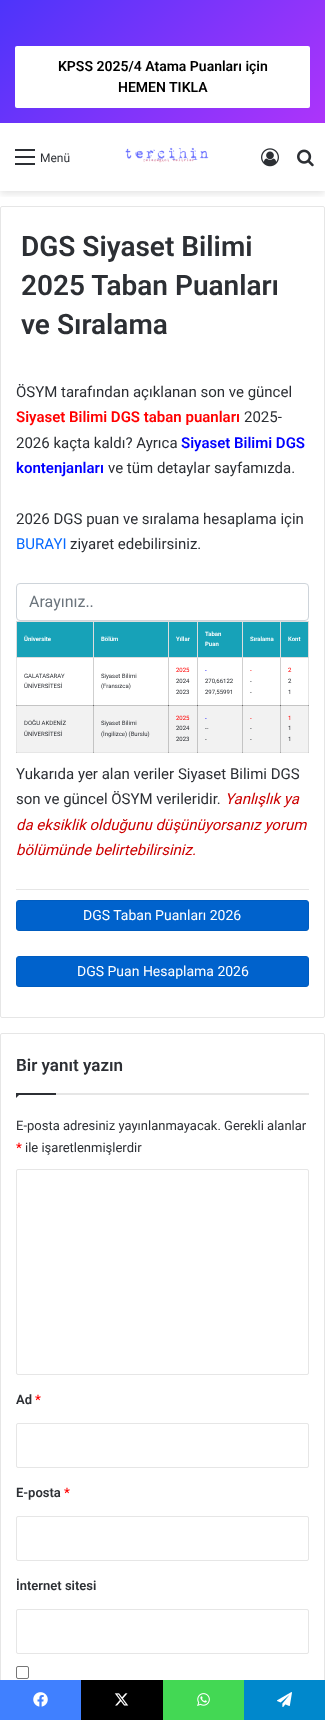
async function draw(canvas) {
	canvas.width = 325;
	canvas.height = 1720;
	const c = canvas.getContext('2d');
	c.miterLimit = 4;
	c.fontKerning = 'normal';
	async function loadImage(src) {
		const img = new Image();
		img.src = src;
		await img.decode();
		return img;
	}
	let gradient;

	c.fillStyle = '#fff';
	c.fillRect(0, 0, 325, 1720);
	gradient = c.createLinearGradient(50, -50, 275, 174);
	gradient.addColorStop(0, '#4d34fa');
	gradient.addColorStop(1, '#ad34fa');
	c.fillStyle = gradient;
	c.fillRect(0, 0, 325, 123);
	c.fillStyle = '#fff';
	c.beginPath();
	c.roundRect(15, 46, 295, 62, 2);
	c.fill();
	c.font = '600 14px Roboto';
	c.fillStyle = '#000';
	c.fillText('KPSS 2025/4 Atama Puanları için', 58, 71);
	c.fillText('HEMEN TIKLA', 118, 92);
	for (const [x, y, w, h, color] of [
		[16, 657, 1, 96, '#e6e6e6'],
		[93, 657, 1, 49, '#cfcfcf'],
		[168, 657, 1, 49, '#cfcfcf'],
		[197, 657, 1, 49, '#cfcfcf'],
		[242, 657, 1, 49, '#cfcfcf'],
		[280, 657, 1, 49, '#cfcfcf'],
		[308, 657, 1, 49, '#e6e6e6'],
		[16, 752, 293, 1, '#e6e6e6'],
		[16, 752, 1, 1, '#cfcfcf'],
		[16, 705, 1, 1, '#a7a7a7'],
		[93, 752, 1, 1, '#a7a7a7'],
		[168, 752, 1, 1, '#a7a7a7'],
		[197, 752, 1, 1, '#a7a7a7'],
		[242, 752, 1, 1, '#a7a7a7'],
		[280, 752, 1, 1, '#a7a7a7'],
		[308, 752, 1, 1, '#cfcfcf'],
	]) {
		c.fillStyle = color;
		c.fillRect(x, y, w, h);
	}
	c.save();
	c.beginPath();
	c.rect(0, 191, 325, 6);
	c.clip();
	c.fillStyle = '#0000001a';
	c.filter = 'blur(3.5px)';
	c.beginPath();
	c.rect(0, 126, 325, 68);
	c.fill();
	c.filter = 'none';
	c.restore();
	for (const [x, y, w, h, color] of [
		[15, 156, 20, 2, '#2c2f34'],
		[15, 149, 20, 2, '#2c2f34'],
		[15, 163, 20, 2, '#2c2f34'],
	]) {
		c.fillStyle = color;
		c.fillRect(x, y, w, h);
	}
	c.font = '12px Roboto';
	c.fillText('Menü', 40, 162);
	c.drawImage(await loadImage('img1.png'), 125, 147, 84, 16);
	c.drawImage(await loadImage('img2.png'), 261, 148, 18, 19);
	c.drawImage(await loadImage('img3.png'), 297, 149, 17, 18);
	c.beginPath();
	c.roundRect(0.5, 206.5, 324, 811, 1.5);
	c.strokeStyle = '#e6e6e6';
	c.stroke();
	c.font = '600 28px Roboto';
	for (const [text, x, y] of [
		['DGS Siyaset Bilimi', 21, 256],
		['2025 Taban Puanları', 21, 295],
		['ve Sıralama', 21, 334],
	]) {
		c.fillText(text, x, y);
	}
	c.font = '15px Roboto';
	c.fillText('ÖSYM tarafından açıklanan son ve güncel', 16, 397);
	c.font = '600 15px Roboto';
	c.fillStyle = '#f00';
	c.fillText('Siyaset Bilimi DGS taban puanları', 16, 422);
	c.font = '15px Roboto';
	c.fillStyle = '#2c2f34';
	c.fillText('2025-', 244, 422);
	c.fillText('2026 kaçta kaldı? Ayrıca', 16, 448);
	c.font = '600 15px Roboto';
	c.fillStyle = '#00f';
	c.fillText('Siyaset Bilimi DGS', 181, 448);
	c.fillText('kontenjanları', 16, 473);
	c.font = '15px Roboto';
	c.fillStyle = '#2c2f34';
	c.fillText('ve tüm detaylar sayfamızda.', 108, 473);
	c.fillText('2026 DGS puan ve sıralama hesaplama için', 16, 524);
	c.fillStyle = '#0669ff';
	c.fillText('BURAYI', 16, 549);
	c.fillStyle = '#2c2f34';
	c.fillText('ziyaret edebilirsiniz.', 70, 549);
	c.beginPath();
	c.roundRect(16.5, 583.5, 292, 37, 3.5);
	c.strokeStyle = '#ced4da';
	c.stroke();
	c.font = '16px Roboto';
	c.fillStyle = '#6c757d';
	c.fillText('Arayınız..', 29, 607);
	for (const [x, y, w, h, color] of [
		[17, 622, 76, 35, '#17a2b8'],
		[280, 621, 29, 1, '#ddd'],
		[308, 621, 1, 37, '#ddd'],
		[280, 657, 29, 1, '#ddd'],
		[280, 621, 1, 37, '#ddd'],
		[242, 621, 39, 1, '#ddd'],
		[242, 657, 39, 1, '#ddd'],
		[242, 621, 1, 37, '#ddd'],
		[197, 621, 46, 1, '#ddd'],
		[197, 657, 46, 1, '#ddd'],
		[197, 621, 1, 37, '#ddd'],
		[168, 621, 30, 1, '#ddd'],
		[168, 657, 30, 1, '#ddd'],
		[168, 621, 1, 37, '#ddd'],
		[93, 621, 76, 1, '#ddd'],
		[93, 657, 76, 1, '#ddd'],
		[93, 621, 1, 37, '#ddd'],
		[16, 621, 78, 1, '#ddd'],
		[16, 657, 78, 1, '#ddd'],
		[16, 621, 1, 37, '#ddd'],
	]) {
		c.fillStyle = color;
		c.fillRect(x, y, w, h);
	}
	c.font = '600 6px Roboto';
	c.fillStyle = '#fff';
	c.fillText('Üniversite', 24, 641);
	c.fillStyle = '#17a2b8';
	c.fillRect(94, 622, 74, 35);
	c.fillStyle = '#fff';
	c.fillText('Bölüm', 101, 641);
	c.fillStyle = '#17a2b8';
	c.fillRect(169, 622, 28, 35);
	c.fillStyle = '#fff';
	c.fillText('Yıllar', 176, 641);
	c.fillStyle = '#17a2b8';
	c.fillRect(198, 622, 44, 35);
	c.fillStyle = '#fff';
	c.fillText('Taban', 205, 636);
	c.fillText('Puan', 205, 646);
	c.fillStyle = '#17a2b8';
	c.fillRect(243, 622, 37, 35);
	c.fillStyle = '#fff';
	c.fillText('Sıralama', 250, 641);
	c.fillStyle = '#17a2b8';
	c.fillRect(281, 622, 27, 35);
	c.fillStyle = '#fff';
	c.fillText('Kont', 288, 641);
	c.font = '6px Roboto';
	c.fillStyle = '#2c2f34';
	for (const [text, x, y] of [
		['GALATASARAY', 24, 678],
		['ÜNİVERSİTESİ', 24, 688],
		['Siyaset Bilimi', 101, 678],
		['(Fransızca)', 101, 688],
	]) {
		c.fillText(text, x, y);
	}
	c.fillStyle = '#f00';
	c.fillText('2025', 176, 672);
	c.fillStyle = '#2c2f34';
	c.fillText('2024', 176, 683);
	c.fillText('2023', 176, 694);
	c.fillStyle = '#00f';
	c.fillText('-', 205, 672);
	c.fillStyle = '#2c2f34';
	c.fillText('270,66122', 205, 683);
	c.fillText('297,55991', 205, 694);
	c.fillStyle = '#f00';
	c.fillText('-', 250, 672);
	c.fillStyle = '#2c2f34';
	c.fillText('-', 250, 683);
	c.fillText('-', 250, 694);
	c.fillStyle = '#f00';
	c.fillText('2', 288, 672);
	c.fillStyle = '#2c2f34';
	c.fillText('2', 288, 683);
	c.fillText('1', 288, 694);
	for (const [x, y, w, h, color] of [
		[17, 706, 291, 46, '#f2f2f2'],
		[17, 705, 77, 1, '#c4c4c4'],
		[93, 705, 1, 47, '#c4c4c4'],
		[93, 705, 76, 1, '#c4c4c4'],
		[93, 705, 1, 1, '#686868'],
		[168, 705, 1, 47, '#c4c4c4'],
		[168, 705, 30, 1, '#c4c4c4'],
		[168, 705, 1, 1, '#686868'],
		[197, 705, 1, 47, '#c4c4c4'],
		[197, 705, 46, 1, '#c4c4c4'],
		[197, 705, 1, 1, '#686868'],
		[242, 705, 1, 47, '#c4c4c4'],
		[242, 705, 39, 1, '#c4c4c4'],
		[242, 705, 1, 1, '#686868'],
		[280, 705, 1, 47, '#c4c4c4'],
		[308, 705, 1, 47, '#dadada'],
	]) {
		c.fillStyle = color;
		c.fillRect(x, y, w, h);
	}
	c.fillStyle = '#2c2f34';
	for (const [text, x, y] of [
		['DOĞU AKDENİZ', 24, 725],
		['ÜNİVERSİTESİ', 24, 736],
		['Siyaset Bilimi', 101, 725],
		['(İngilizce) (Burslu)', 101, 736],
	]) {
		c.fillText(text, x, y);
	}
	c.fillStyle = '#f00';
	c.fillText('2025', 176, 720);
	c.fillStyle = '#2c2f34';
	c.fillText('2024', 176, 730);
	c.fillText('2023', 176, 741);
	c.fillStyle = '#00f';
	c.fillText('-', 205, 720);
	c.fillStyle = '#2c2f34';
	c.fillText('--', 205, 730);
	c.fillText('-', 205, 741);
	c.fillStyle = '#f00';
	c.fillText('-', 250, 720);
	c.fillStyle = '#2c2f34';
	c.fillText('-', 250, 730);
	c.fillText('-', 250, 741);
	for (const [x, y, w, h, color] of [
		[280, 705, 29, 1, '#c4c4c4'],
		[280, 705, 1, 1, '#686868'],
		[308, 705, 1, 1, '#9e9e9e'],
	]) {
		c.fillStyle = color;
		c.fillRect(x, y, w, h);
	}
	c.fillStyle = '#f00';
	c.fillText('1', 288, 720);
	c.fillStyle = '#2c2f34';
	c.fillText('1', 288, 730);
	c.fillText('1', 288, 741);
	c.font = '15px Roboto';
	c.fillText('Yukarıda yer alan veriler Siyaset Bilimi DGS', 16, 779);
	c.fillText('son ve güncel ÖSYM verileridir.', 16, 804);
	c.font = 'italic 15px Roboto';
	c.fillStyle = '#c00';
	for (const [text, x, y] of [
		['Yanlışlık ya', 225, 804],
		['da eksiklik olduğunu düşünüyorsanız yorum', 16, 830],
		['bölümünde belirtebilirsiniz.', 16, 855],
	]) {
		c.fillText(text, x, y);
	}
	c.fillStyle = '#e6e6e6';
	c.fillRect(16, 889, 293, 1);
	c.fillStyle = '#0062cc';
	c.beginPath();
	c.roundRect(16.5, 900.5, 292, 30, 2.5);
	c.fill();
	c.strokeStyle = '#005cbf';
	c.stroke();
	c.font = '14px Roboto';
	c.fillStyle = '#fff';
	c.fillText('DGS Taban Puanları 2026', 83, 920);
	c.fillStyle = '#0062cc';
	c.beginPath();
	c.roundRect(16.5, 956.5, 292, 30, 2.5);
	c.fill();
	c.stroke();
	c.fillStyle = '#fff';
	c.fillText('DGS Puan Hesaplama 2026', 77, 976);
	c.beginPath();
	c.roundRect(0.5, 1033.5, 324, 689, 1.5);
	c.strokeStyle = '#e6e6e6';
	c.stroke();
	c.fillStyle = '#e6e6e6';
	c.fillRect(56, 1093, 253, 2);
	c.font = '600 17px Roboto';
	c.fillStyle = '#2c2f34';
	c.fillText('Bir yanıt yazın', 16, 1071);
	c.beginPath();
	c.moveTo(16, 1093);
	c.lineTo(21, 1093);
	c.lineTo(16, 1098);
	c.closePath();
	c.fill();
	c.fillRect(16, 1093, 40, 2);
	c.font = '13px Roboto';
	c.fillText('E-posta adresiniz yayınlanmayacak. Gerekli alanlar', 16, 1130);
	c.font = '600 13px Roboto';
	c.fillStyle = '#f00';
	c.fillText('*', 16, 1152);
	c.font = '13px Roboto';
	c.fillStyle = '#2c2f34';
	c.fillText('ile işaretlenmişlerdir', 25, 1152);
	c.beginPath();
	c.roundRect(16.5, 1169.5, 292, 205, 1.5);
	c.stroke();
	c.font = '600 13px Roboto';
	c.fillText('Ad', 16, 1404);
	c.fillStyle = '#f00';
	c.fillText('*', 35, 1404);
	c.beginPath();
	c.roundRect(16.5, 1423.5, 292, 44, 1.5);
	c.stroke();
	c.fillStyle = '#2c2f34';
	c.fillText('E-posta', 16, 1497);
	c.fillStyle = '#f00';
	c.fillText('*', 64, 1497);
	c.beginPath();
	c.roundRect(16.5, 1516.5, 292, 44, 1.5);
	c.stroke();
	c.fillStyle = '#2c2f34';
	c.fillText('İnternet sitesi', 16, 1590);
	c.beginPath();
	c.roundRect(16.5, 1609.5, 292, 44, 1.5);
	c.stroke();
	c.beginPath();
	c.roundRect(16.5, 1666.5, 12, 12, 1.5);
	c.strokeStyle = '#767676';
	c.stroke();
	c.fillStyle = '#4080ff';
	c.fillRect(0, 1680, 81, 40);
	c.drawImage(await loadImage('img4.png'), 33, 1692, 15, 15);
	c.fillStyle = '#000';
	c.fillRect(81, 1680, 82, 40);
	c.drawImage(await loadImage('img5.png'), 114, 1693, 15, 13);
	c.fillStyle = '#43d854';
	c.fillRect(163, 1680, 81, 40);
	c.drawImage(await loadImage('img6.png'), 197, 1693, 13, 13);
	c.fillStyle = '#08c';
	c.fillRect(244, 1680, 81, 40);
	c.drawImage(await loadImage('img7.png'), 277, 1692, 15, 15);
}

draw(document.querySelector('canvas'));
